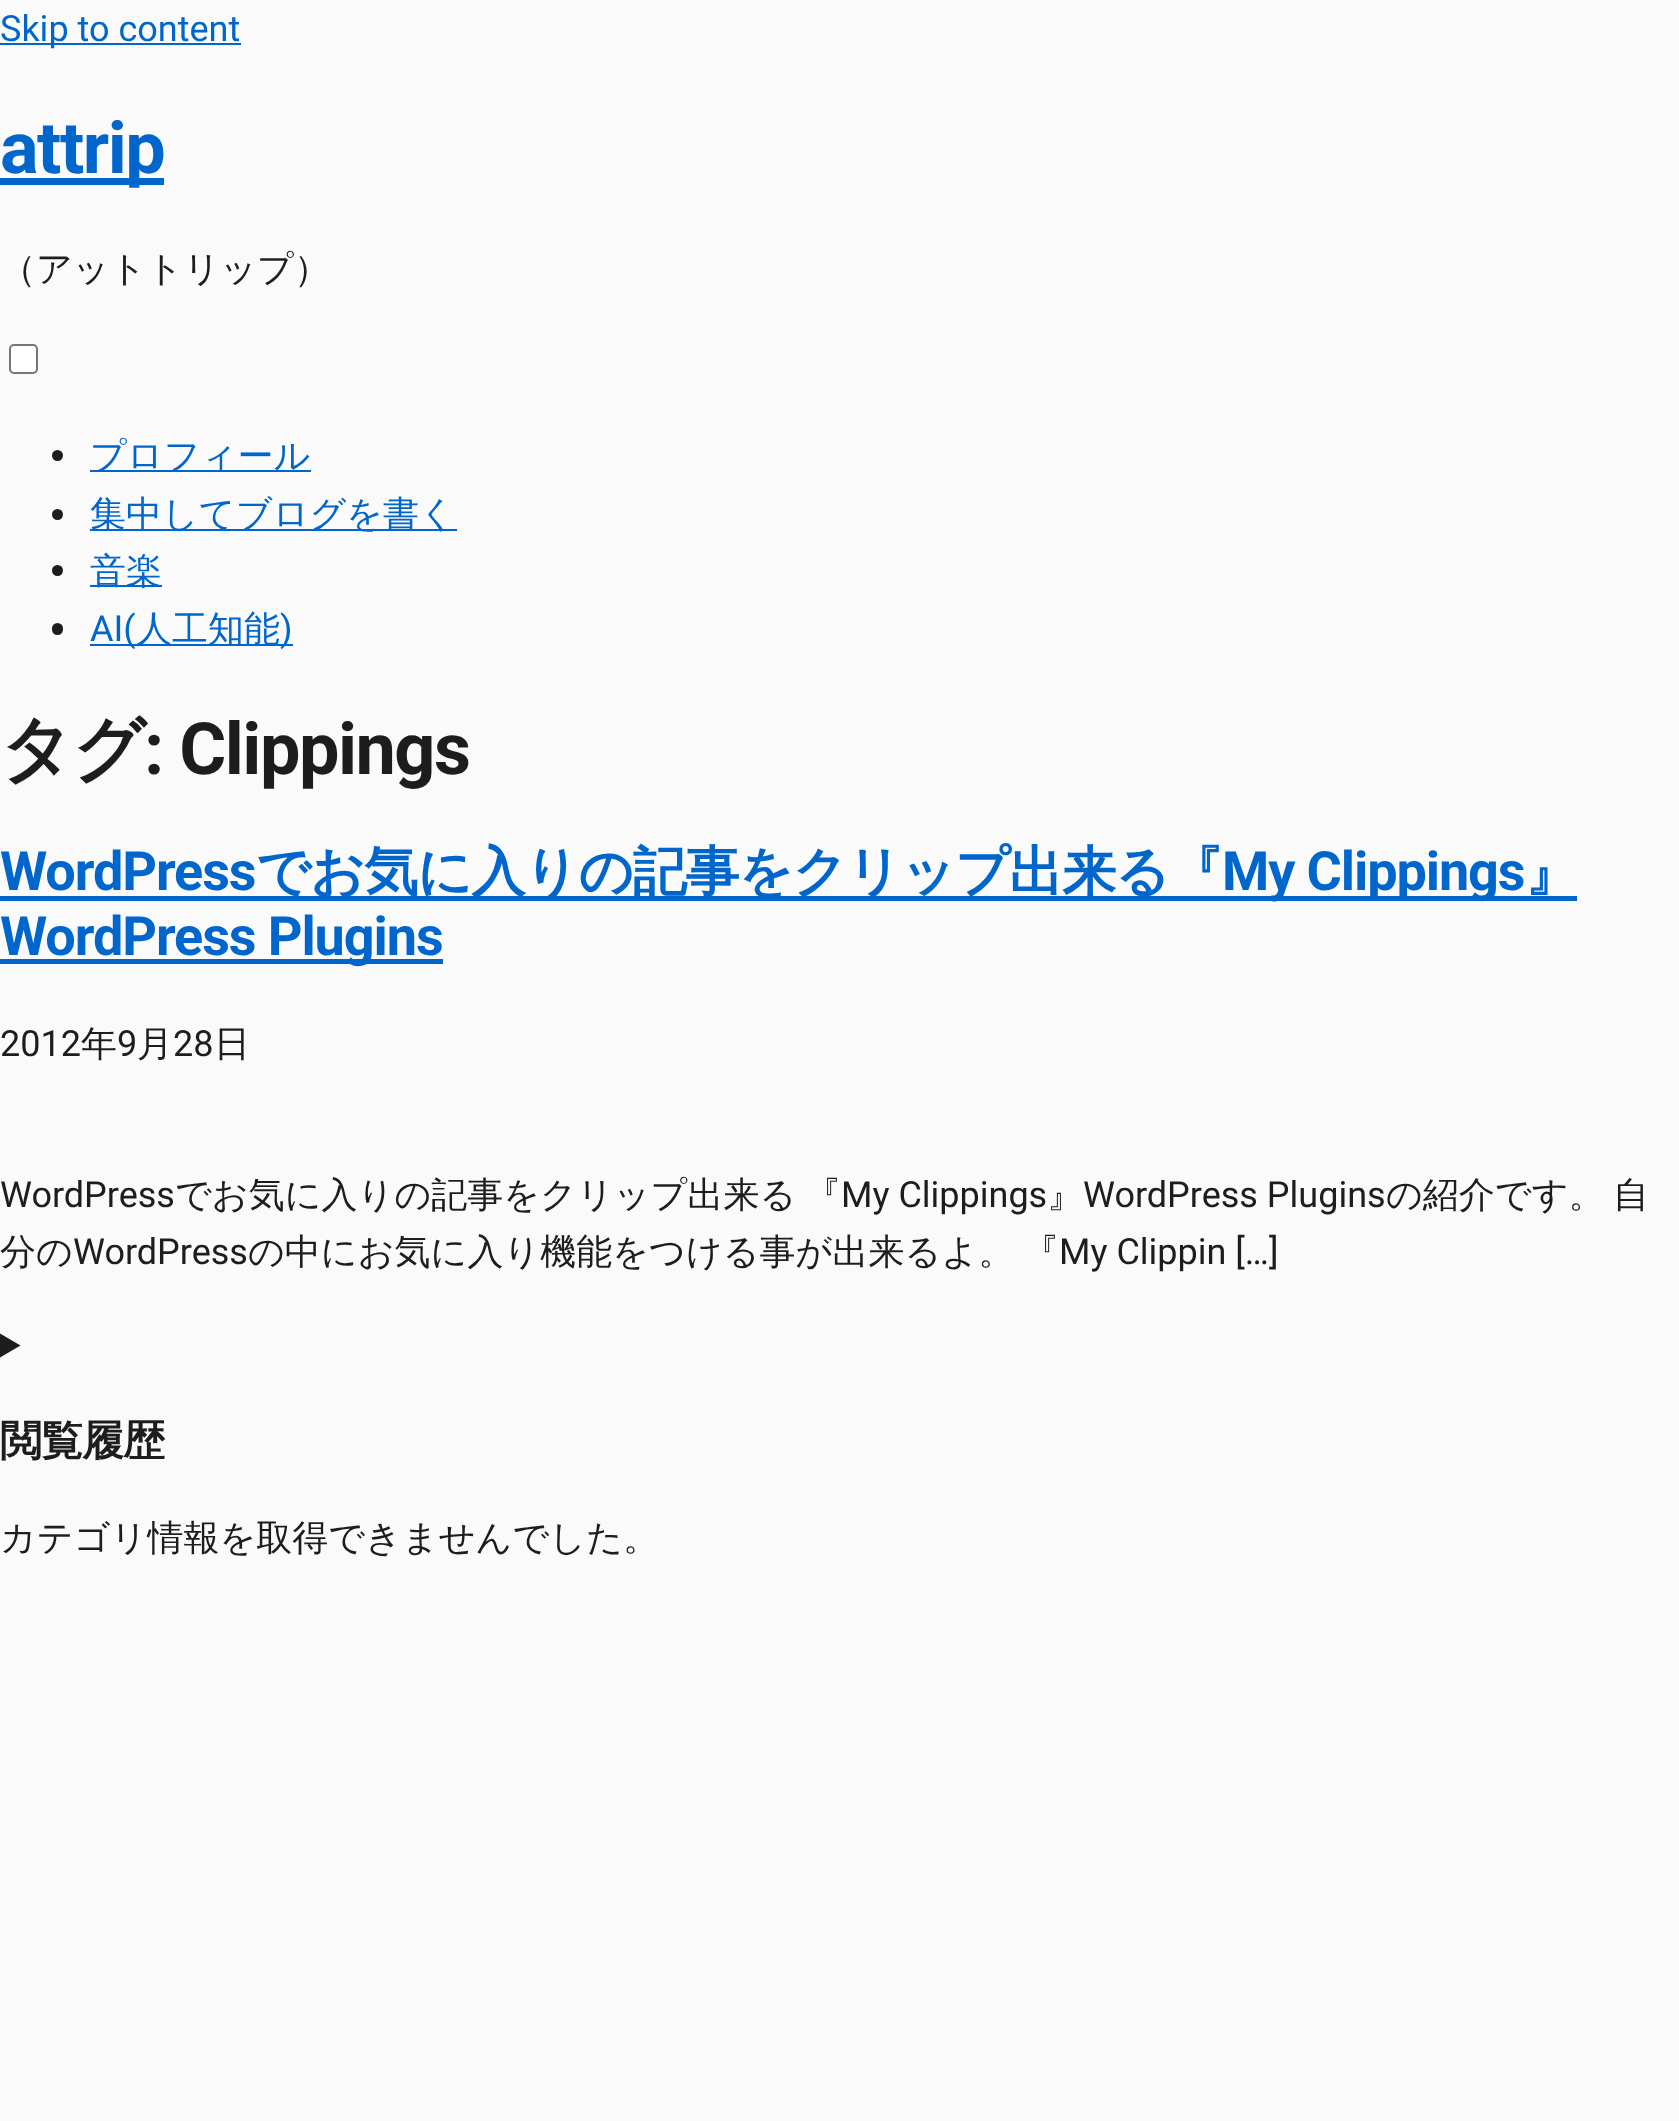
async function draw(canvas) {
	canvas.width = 1679;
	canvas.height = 2121;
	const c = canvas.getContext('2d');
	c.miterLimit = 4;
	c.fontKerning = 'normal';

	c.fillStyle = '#fafafa';
	c.fillRect(0, 0, 1679, 2121);
	c.fillStyle = '#06c';
	c.fillRect(0, 43, 241, 2);
	c.font = '36px Roboto';
	c.fillText('Skip to content', 0, 41);
	c.fillRect(0, 178, 164, 7);
	c.letterSpacing = '-1.5px';
	c.font = 'bold 72px Roboto';
	c.fillText('attrip', 0, 173);
	c.letterSpacing = '0px';
	c.font = '500 36px WenQuanYi Zen Hei';
	c.fillStyle = '#1d1d1f';
	c.fillText('（アットトリップ）', 0, 281);
	c.fillStyle = '#fff';
	c.beginPath();
	c.roundRect(10, 345, 27, 28, 4);
	c.fill();
	c.strokeStyle = '#767676';
	c.lineWidth = 2;
	c.stroke();
	c.fillStyle = '#1d1d1f';
	c.beginPath();
	c.arc(57.5, 455.5, 5.5, 0, 2 * Math.PI);
	c.fill();
	c.fillStyle = '#06c';
	c.fillRect(90, 470, 221, 2);
	c.fillText('プロフィール', 90, 468);
	c.fillStyle = '#1d1d1f';
	c.beginPath();
	c.arc(57.5, 514.5, 5.5, 0, 2 * Math.PI);
	c.fill();
	c.fillStyle = '#06c';
	c.fillRect(90, 529, 367, 2);
	c.fillText('集中してブログを書く', 90, 526);
	c.fillStyle = '#1d1d1f';
	c.beginPath();
	c.arc(57.5, 570.5, 5.5, 0, 2 * Math.PI);
	c.fill();
	c.fillStyle = '#06c';
	c.fillRect(90, 585, 72, 2);
	c.fillText('音楽', 90, 583);
	c.fillStyle = '#1d1d1f';
	c.beginPath();
	c.roundRect(52, 623, 11, 12, 5.5);
	c.fill();
	c.fillStyle = '#06c';
	c.fillRect(90, 644, 203, 2);
	c.font = '36px Roboto';
	c.fillText('AI(', 90, 641);
	c.font = '500 36px WenQuanYi Zen Hei';
	c.fillText('人工知能', 136, 641);
	c.font = '36px Roboto';
	c.fillText(')', 280, 641);
	c.letterSpacing = '-1.5px';
	c.font = 'bold 72px WenQuanYi Zen Hei';
	c.fillStyle = '#1d1d1f';
	c.fillText('タグ', 0, 774);
	c.font = 'bold 72px Roboto';
	c.fillText(': Clippings', 144, 774);
	c.letterSpacing = '-1.1px';
	c.font = 'bold 54px Roboto';
	c.fillStyle = '#06c';
	c.fillText('WordPress', 0, 890);
	c.fillRect(0, 896, 1577, 5);
	c.font = 'bold 54px WenQuanYi Zen Hei';
	c.fillText('でお気に入りの記事をクリップ出来る『', 256, 890);
	c.font = 'bold 54px Roboto';
	c.fillText('My Clippings', 1222, 890);
	c.font = 'bold 54px WenQuanYi Zen Hei';
	c.fillText('』', 1525, 890);
	c.fillRect(0, 959, 443, 5);
	c.font = 'bold 54px Roboto';
	c.fillText('WordPress Plugins', 0, 955);
	c.letterSpacing = '0px';
	c.font = '36px Roboto';
	c.fillStyle = '#1d1d1f';
	c.fillText('2012', 0, 1056);
	c.font = '500 36px WenQuanYi Zen Hei';
	c.fillText('年', 81, 1056);
	c.font = '36px Roboto';
	c.fillText('9', 117, 1056);
	c.font = '500 36px WenQuanYi Zen Hei';
	c.fillText('月', 137, 1056);
	c.font = '36px Roboto';
	c.fillText('28', 173, 1056);
	c.font = '500 36px WenQuanYi Zen Hei';
	c.fillText('日', 214, 1056);
	c.font = '36px Roboto';
	c.fillText('WordPress', 0, 1207);
	c.font = '500 36px WenQuanYi Zen Hei';
	c.fillText('でお気に入りの記事をクリップ出来る', 175, 1207);
	c.fillText('『', 805, 1207);
	c.font = '36px Roboto';
	c.fillText('My Clippings', 841, 1207);
	c.font = '500 36px WenQuanYi Zen Hei';
	c.fillText('』', 1047, 1207);
	c.font = '36px Roboto';
	c.fillText('WordPress Plugins', 1083, 1207);
	c.font = '500 36px WenQuanYi Zen Hei';
	for (const [text, x, y] of [
		['の紹介です。', 1386, 1207],
		['自', 1613, 1207],
		['分の', 0, 1264],
	]) {
		c.fillText(text, x, y);
	}
	c.font = '36px Roboto';
	c.fillText('WordPress', 73, 1264);
	c.font = '500 36px WenQuanYi Zen Hei';
	c.fillText('の中にお気に入り機能をつける事が出来るよ。', 248, 1264);
	c.fillText('『', 1023, 1264);
	c.font = '36px Roboto';
	c.fillText('My Clippin […]', 1059, 1264);
	c.beginPath();
	c.moveTo(0, 1333.5);
	c.lineTo(20.5, 1345.5);
	c.lineTo(0, 1357.5);
	c.closePath();
	c.fill();
	c.letterSpacing = '-1px';
	c.font = 'bold 42px WenQuanYi Zen Hei';
	c.fillText('閲覧履歴', 0, 1455);
	c.letterSpacing = '0px';
	c.font = '500 36px WenQuanYi Zen Hei';
	c.fillText('カテゴリ情報を取得できませんでした。', 0, 1550);
}

draw(document.querySelector('canvas'));
